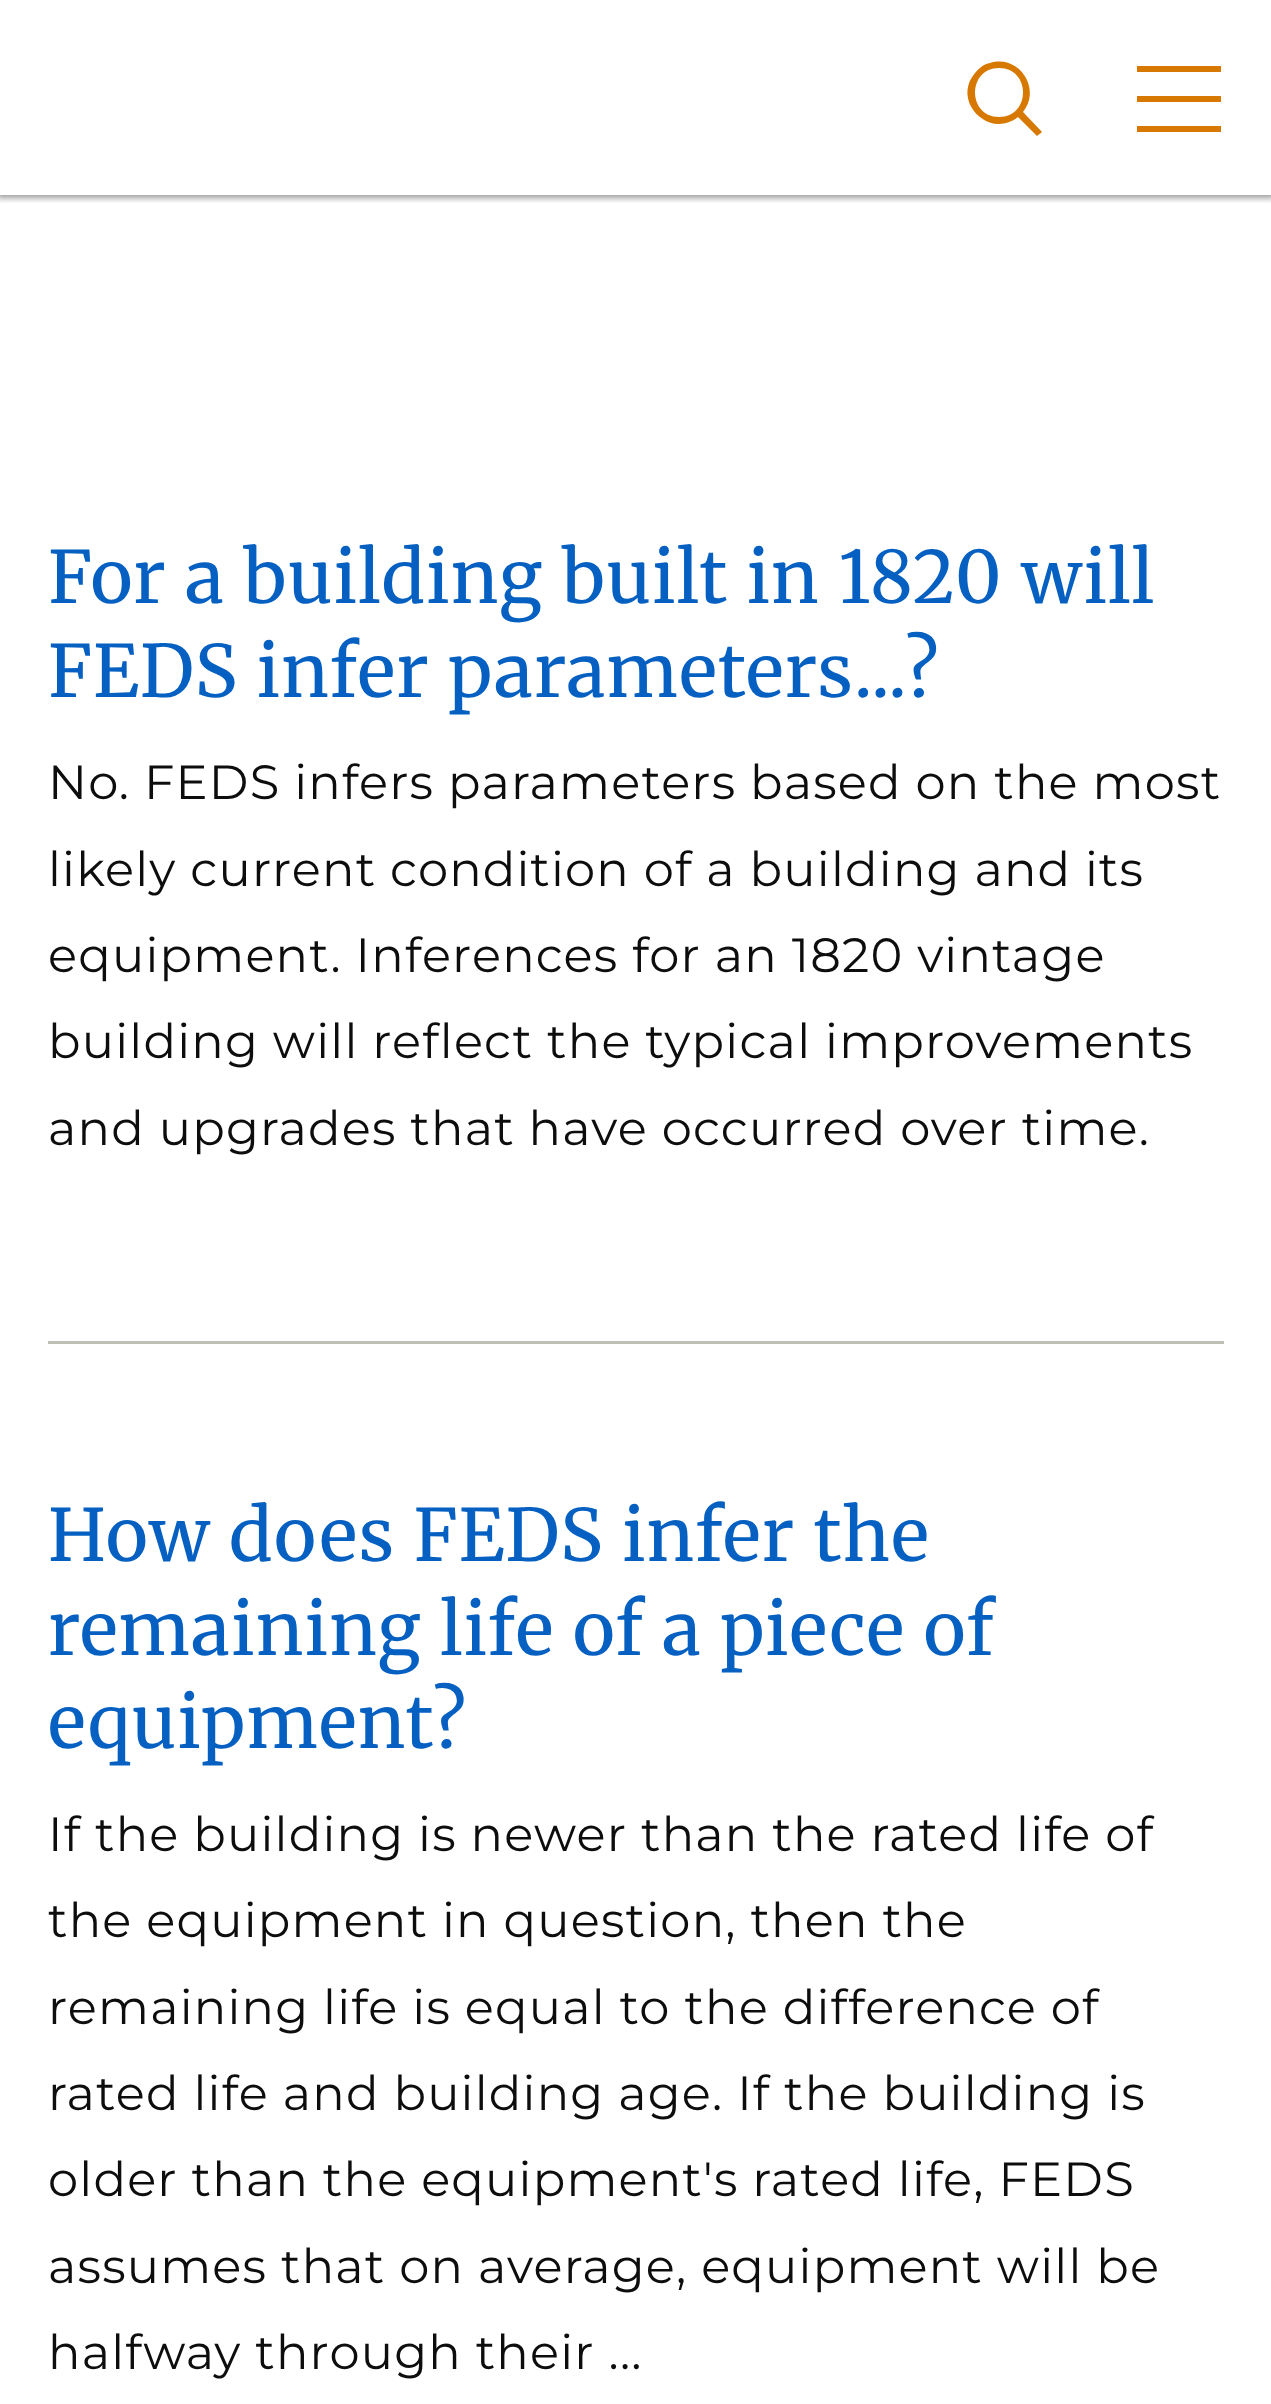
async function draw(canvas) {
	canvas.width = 1271;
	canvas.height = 2404;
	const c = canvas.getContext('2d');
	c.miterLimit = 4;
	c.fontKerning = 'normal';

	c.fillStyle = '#fff';
	c.fillRect(0, 0, 1271, 2404);
	c.save();
	c.beginPath();
	c.rect(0, 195, 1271, 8);
	c.clip();
	c.fillStyle = '#00000066';
	c.filter = 'blur(3px)';
	c.beginPath();
	c.rect(-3, -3, 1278, 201);
	c.fill();
	c.filter = 'none';
	c.restore();
	c.fillStyle = '#d77900';
	c.beginPath();
	c.moveTo(1023, 112);
	c.bezierCurveTo(1042, 89, 1019, 54, 990, 63);
	c.bezierCurveTo(984, 64, 979, 68, 975, 73);
	c.bezierCurveTo(951, 101, 989, 140, 1018, 117);
	c.lineTo(1037, 136);
	c.lineTo(1042, 132);
	c.closePath();
	c.moveTo(999, 68);
	c.bezierCurveTo(1031, 68, 1031, 117, 999, 117);
	c.bezierCurveTo(967, 117, 967, 68, 999, 68);
	c.closePath();
	c.fill();
	for (const [x, y, w, h, color] of [
		[1137, 66, 84, 6, '#d77900'],
		[1137, 96, 84, 6, '#d77900'],
		[1137, 126, 84, 6, '#d77900'],
		[48, 1341, 1176, 3, '#bebeb7'],
	]) {
		c.fillStyle = color;
		c.fillRect(x, y, w, h);
	}
	c.letterSpacing = '1.2px';
	c.font = '72px Merriweather';
	c.fillStyle = '#0560c1';
	c.fillText('For a building built in 1820 will', 48, 603);
	c.fillText('FEDS infer parameters...?', 48, 697);
	c.font = '48px Montserrat';
	c.fillStyle = '#0e0d0d';
	for (const [text, x, y] of [
		['No. FEDS infers parameters based on the most', 48, 799],
		['likely current condition of a building and its', 48, 886],
		['equipment. Inferences for an 1820 vintage', 48, 972],
		['building will reflect the typical improvements', 48, 1058],
		['and upgrades that have occurred over time.', 48, 1145],
	]) {
		c.fillText(text, x, y);
	}
	c.font = '72px Merriweather';
	c.fillStyle = '#0560c1';
	for (const [text, x, y] of [
		['How does FEDS infer the', 48, 1561],
		['remaining life of a piece of', 48, 1655],
		['equipment?', 48, 1748],
	]) {
		c.fillText(text, x, y);
	}
	c.font = '48px Montserrat';
	c.fillStyle = '#0e0d0d';
	for (const [text, x, y] of [
		['If the building is newer than the rated life of', 48, 1851],
		['the equipment in question, then the', 48, 1937],
		['remaining life is equal to the difference of', 48, 2024],
		['rated life and building age. If the building is', 48, 2110],
		['older than the equipment\'s rated life, FEDS', 48, 2196],
		['assumes that on average, equipment will be', 48, 2283],
		['halfway through their ...', 48, 2369],
	]) {
		c.fillText(text, x, y);
	}
}

draw(document.querySelector('canvas'));
